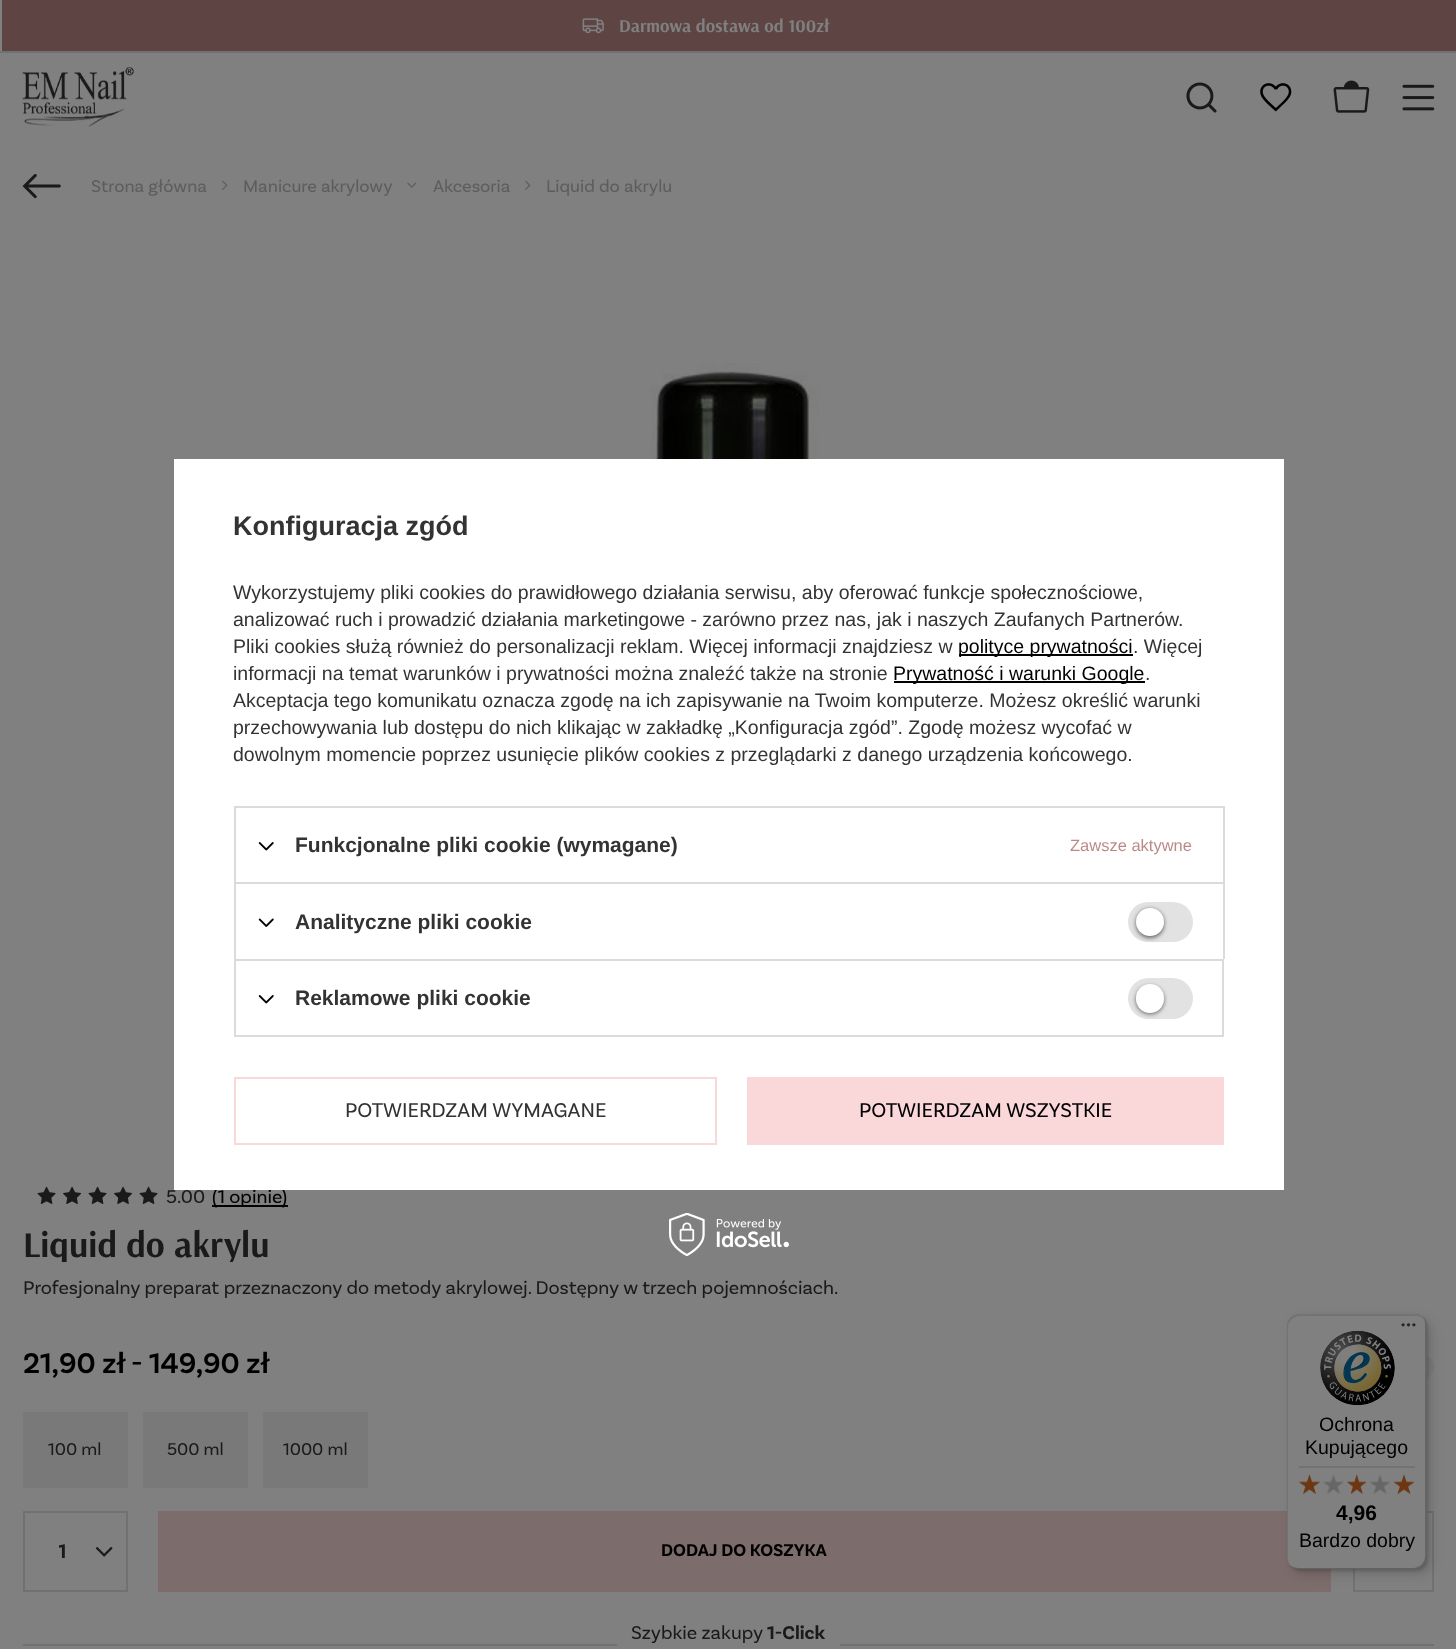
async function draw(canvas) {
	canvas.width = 1456;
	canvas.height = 1649;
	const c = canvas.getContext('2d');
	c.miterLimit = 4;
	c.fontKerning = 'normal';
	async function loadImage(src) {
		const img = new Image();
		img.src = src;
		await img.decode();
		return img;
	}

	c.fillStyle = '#808080';
	c.fillRect(0, 0, 1456, 1649);
	c.fillStyle = '#717171';
	c.fillRect(0, 51, 1456, 2);
	c.fillStyle = '#5e4544';
	c.fillRect(2, 0, 1454, 51);
	c.drawImage(await loadImage('img1.png'), 582, 18, 22, 16);
	c.font = 'bold 18px Arsenal';
	c.fillStyle = '#808080';
	c.fillText('Darmowa dostawa od 100zł', 619, 32);
	c.drawImage(await loadImage('img2.png'), 22, 67, 112, 60);
	c.drawImage(await loadImage('img3.png'), 1186, 82, 31, 31);
	c.drawImage(await loadImage('img4.png'), 1260, 83, 32, 29);
	c.drawImage(await loadImage('img5.png'), 1333, 80, 37, 33);
	c.drawImage(await loadImage('img6.png'), 1402, 84, 33, 27);
	c.drawImage(await loadImage('img7.png'), 22, 174, 39, 25);
	c.font = '18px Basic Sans';
	c.fillStyle = '#5d5d5d';
	c.fillText('Strona główna', 91, 192);
	c.drawImage(await loadImage('img8.png'), 222, 180, 6, 10);
	c.fillText('Manicure akrylowy', 243, 192);
	c.drawImage(await loadImage('img9.png'), 407, 182, 10, 6);
	c.fillText('Akcesoria', 433, 192);
	c.drawImage(await loadImage('img8.png'), 525, 180, 6, 10);
	c.fillText('Liquid do akrylu', 546, 192);
	c.drawImage(await loadImage('img10.png'), 603, 363, 252, 96);
	c.drawImage(await loadImage('img11.png'), 37, 1186, 19, 18);
	c.drawImage(await loadImage('img12.png'), 63, 1186, 19, 18);
	c.drawImage(await loadImage('img11.png'), 88, 1186, 19, 18);
	c.drawImage(await loadImage('img12.png'), 114, 1186, 19, 18);
	c.drawImage(await loadImage('img11.png'), 139, 1186, 19, 18);
	c.font = '19.5px Basic Sans';
	c.fillStyle = '#1a1a1a';
	c.fillText('5.00', 166, 1203);
	c.fillStyle = '#000';
	c.fillRect(212, 1205, 76, 2);
	c.fillText('(1 opinie)', 212, 1203);
	c.save();
	c.beginPath();
	c.rect(23, 1226, 1411, 36);
	c.clip();
	c.font = 'bold 36px Arsenal';
	c.fillStyle = '#1a1a1a';
	c.fillText('Liquid do akrylu', 23, 1257);
	c.restore();
	c.fillStyle = '#1a1a1a';
	c.fillText('Profesjonalny preparat przeznaczony do metody akrylowej. Dostępny w trzech pojemnościach.', 23, 1294);
	c.font = '600 30px Basic Sans';
	c.fillStyle = '#000';
	c.fillText('21,90 zł', 23, 1373);
	c.fillText('- 149,90 zł', 131, 1373);
	c.fillStyle = '#7b7b7b';
	c.beginPath();
	c.arc(1422, 1367, 12, 0, 2 * Math.PI);
	c.fill();
	c.fillStyle = '#797979';
	c.fillRect(23, 1412, 105, 76);
	c.font = '18px Basic Sans';
	c.fillStyle = '#1a1a1a';
	c.fillText('100 ml', 48, 1455);
	c.fillStyle = '#797979';
	c.fillRect(143, 1412, 105, 76);
	c.fillStyle = '#1a1a1a';
	c.fillText('500 ml', 167, 1455);
	c.fillStyle = '#797979';
	c.fillRect(263, 1412, 105, 76);
	c.fillStyle = '#1a1a1a';
	c.fillText('1000 ml', 283, 1455);
	c.strokeStyle = '#717171';
	c.lineWidth = 2;
	c.strokeRect(24, 1512, 103, 79);
	c.save();
	c.beginPath();
	c.rect(59, 1538, 7, 25);
	c.clip();
	c.font = 'bold 21px Basic Sans';
	c.fillText('1', 58, 1558);
	c.restore();
	c.drawImage(await loadImage('img13.png'), 95, 1547, 18, 10);
	c.fillStyle = '#7d6c6c';
	c.fillRect(158, 1511, 1173, 81);
	c.font = 'bold 18px Basic Sans';
	c.fillStyle = '#000';
	c.fillText('DODAJ DO KOSZYKA', 661, 1556);
	c.strokeRect(1354, 1512, 79, 79);
	c.font = '19.5px Basic Sans';
	c.fillStyle = '#1a1a1a';
	c.fillText('Szybkie zakupy', 631, 1639);
	c.font = 'bold 19.5px Basic Sans';
	c.fillText('1-Click', 767, 1639);
	for (const [x, y, w, h, color] of [
		[23, 1644, 594, 2, '#717171'],
		[840, 1644, 594, 2, '#717171'],
		[174, 459, 1110, 731, '#fff'],
	]) {
		c.fillStyle = color;
		c.fillRect(x, y, w, h);
	}
	c.font = 'bold 27px Liberation Sans';
	c.fillStyle = '#333';
	c.fillText('Konfiguracja zgód', 233, 535);
	c.font = '19.5px Liberation Sans';
	for (const [text, x, y] of [
		['Wykorzystujemy pliki cookies do prawidłowego działania serwisu, aby oferować funkcje społecznościowe,', 233, 599],
		['analizować ruch i prowadzić działania marketingowe - zarówno przez nas, jak i naszych Zaufanych Partnerów.', 233, 626],
		['Pliki cookies służą również do personalizacji reklam. Więcej informacji znajdziesz w', 233, 653],
	]) {
		c.fillText(text, x, y);
	}
	c.fillStyle = '#000';
	c.fillRect(959, 654, 174, 2);
	c.fillText('polityce prywatności', 958, 653);
	c.fillStyle = '#333';
	c.fillText('. Więcej', 1133, 653);
	c.fillText('informacji na temat warunków i prywatności można znaleźć także na stronie', 233, 680);
	c.fillStyle = '#000';
	c.fillRect(894, 681, 251, 2);
	c.fillText('Prywatność i warunki Google', 893, 680);
	c.fillStyle = '#333';
	for (const [text, x, y] of [
		['.', 1145, 680],
		['Akceptacja tego komunikatu oznacza zgodę na ich zapisywanie na Twoim komputerze. Możesz określić warunki', 233, 707],
		['przechowywania lub dostępu do nich klikając w zakładkę „Konfiguracja zgód”. Zgodę możesz wycofać w', 233, 734],
		['dowolnym momencie poprzez usunięcie plików cookies z przeglądarki z danego urządzenia końcowego.', 233, 761],
	]) {
		c.fillText(text, x, y);
	}
	for (const [x, y, w, h, color] of [
		[234, 806, 990, 2, '#dbdbdb'],
		[1223, 806, 2, 76, '#dbdbdb'],
		[234, 806, 2, 76, '#dbdbdb'],
	]) {
		c.fillStyle = color;
		c.fillRect(x, y, w, h);
	}
	c.drawImage(await loadImage('img14.png'), 258, 842, 16, 9);
	c.font = 'bold 21px Liberation Sans';
	c.fillStyle = '#333';
	c.fillText('Funkcjonalne pliki cookie (wymagane)', 295, 852);
	c.font = '16.5px Liberation Sans';
	c.fillStyle = '#bb8a88';
	c.fillText('Zawsze aktywne', 1070, 851);
	for (const [x, y, w, h, color] of [
		[234, 882, 990, 2, '#dbdbdb'],
		[1223, 882, 2, 77, '#dbdbdb'],
		[234, 882, 2, 77, '#dbdbdb'],
	]) {
		c.fillStyle = color;
		c.fillRect(x, y, w, h);
	}
	c.drawImage(await loadImage('img15.png'), 258, 918, 16, 9);
	c.font = 'bold 21px Liberation Sans';
	c.fillStyle = '#333';
	c.fillText('Analityczne pliki cookie', 295, 929);
	c.fillStyle = '#e2e2e2';
	c.beginPath();
	c.roundRect(1128, 902, 65, 40, 20);
	c.fill();
	c.fillStyle = '#0000008f';
	c.filter = 'blur(2px)';
	c.beginPath();
	c.roundRect(1136, 909, 28, 29, 14);
	c.fill();
	c.filter = 'none';
	c.fillStyle = '#fff';
	c.beginPath();
	c.arc(1150, 922, 14, 0, 2 * Math.PI);
	c.fill();
	c.strokeStyle = '#dbdbdb';
	c.strokeRect(235, 960, 988, 76);
	c.drawImage(await loadImage('img14.png'), 258, 995, 16, 9);
	c.fillStyle = '#333';
	c.fillText('Reklamowe pliki cookie', 295, 1005);
	c.fillStyle = '#e2e2e2';
	c.beginPath();
	c.roundRect(1128, 978, 65, 41, 20.5);
	c.fill();
	c.fillStyle = '#0000008f';
	c.filter = 'blur(2px)';
	c.beginPath();
	c.roundRect(1136, 986, 28, 28, 14);
	c.fill();
	c.filter = 'none';
	c.fillStyle = '#fff';
	c.beginPath();
	c.roundRect(1136, 984, 28, 29, 14);
	c.fill();
	c.strokeStyle = '#fad7d8';
	c.strokeRect(235, 1078, 481, 66);
	c.font = '21px Basic Sans';
	c.fillStyle = '#333';
	c.fillText('POTWIERDZAM WYMAGANE', 345, 1117);
	c.fillStyle = '#fad7d8';
	c.fillRect(747, 1077, 477, 68);
	c.fillStyle = '#000';
	c.fillText('POTWIERDZAM WSZYSTKIE', 859, 1117);
	c.drawImage(await loadImage('img16.png'), 669, 1213, 120, 43);
	c.fillStyle = '#00000026';
	c.filter = 'blur(6px)';
	c.beginPath();
	c.roundRect(1292, 1319, 139, 255, 12);
	c.fill();
	c.filter = 'none';
	c.filter = 'blur(1.5px)';
	c.beginPath();
	c.roundRect(1289, 1316, 139, 255, 12);
	c.fill();
	c.filter = 'none';
	c.fillStyle = '#808080';
	c.beginPath();
	c.roundRect(1287, 1314, 140, 255, 12);
	c.fill();
	c.fillStyle = '#0000001a';
	c.beginPath();
	c.moveTo(1300, 1316);
	c.lineTo(1416, 1316);
	c.bezierCurveTo(1420, 1316, 1424, 1318, 1426, 1321);
	c.bezierCurveTo(1424, 1317, 1420, 1314, 1415, 1314);
	c.lineTo(1299, 1314);
	c.bezierCurveTo(1292, 1314, 1287, 1319, 1287, 1326);
	c.lineTo(1287, 1557);
	c.bezierCurveTo(1287, 1561, 1289, 1564, 1291, 1566);
	c.bezierCurveTo(1289, 1564, 1288, 1561, 1288, 1558);
	c.lineTo(1288, 1328);
	c.bezierCurveTo(1288, 1321, 1294, 1316, 1300, 1316);
	c.closePath();
	c.fill();
	c.fillStyle = '#00000033';
	c.beginPath();
	c.moveTo(1290, 1565);
	c.bezierCurveTo(1292, 1567, 1295, 1569, 1299, 1569);
	c.lineTo(1415, 1569);
	c.bezierCurveTo(1422, 1569, 1427, 1564, 1427, 1557);
	c.lineTo(1427, 1326);
	c.bezierCurveTo(1427, 1322, 1425, 1319, 1422, 1316);
	c.bezierCurveTo(1424, 1319, 1425, 1321, 1425, 1324);
	c.lineTo(1425, 1556);
	c.bezierCurveTo(1425, 1562, 1420, 1568, 1413, 1568);
	c.lineTo(1298, 1568);
	c.bezierCurveTo(1295, 1568, 1292, 1567, 1290, 1565);
	c.closePath();
	c.fill();
	c.fillStyle = '#19191933';
	c.beginPath();
	c.moveTo(1291, 1566);
	c.bezierCurveTo(1293, 1568, 1296, 1569, 1299, 1569);
	c.lineTo(1415, 1569);
	c.bezierCurveTo(1422, 1569, 1427, 1564, 1427, 1557);
	c.lineTo(1427, 1326);
	c.bezierCurveTo(1427, 1322, 1425, 1319, 1423, 1317);
	c.bezierCurveTo(1425, 1319, 1426, 1322, 1426, 1325);
	c.lineTo(1426, 1556);
	c.bezierCurveTo(1426, 1563, 1420, 1568, 1414, 1568);
	c.lineTo(1298, 1568);
	c.bezierCurveTo(1295, 1568, 1293, 1567, 1291, 1566);
	c.closePath();
	c.fill();
	c.fillStyle = '#8080804d';
	c.beginPath();
	c.moveTo(1290, 1565);
	c.bezierCurveTo(1292, 1567, 1295, 1569, 1299, 1569);
	c.lineTo(1415, 1569);
	c.bezierCurveTo(1422, 1569, 1427, 1564, 1427, 1557);
	c.lineTo(1427, 1326);
	c.bezierCurveTo(1427, 1321, 1425, 1318, 1421, 1316);
	c.bezierCurveTo(1424, 1318, 1426, 1321, 1426, 1325);
	c.lineTo(1426, 1556);
	c.bezierCurveTo(1426, 1563, 1420, 1568, 1414, 1568);
	c.lineTo(1298, 1568);
	c.bezierCurveTo(1295, 1568, 1292, 1567, 1290, 1565);
	c.closePath();
	c.fill();
	c.drawImage(await loadImage('img17.png'), 1401, 1323, 15, 4);
	c.drawImage(await loadImage('img18.png'), 1320, 1331, 75, 75);
	c.font = '19.5px Liberation Sans';
	c.fillStyle = '#000';
	c.fillText('Ochrona', 1319, 1431);
	c.fillText('Kupującego', 1305, 1454);
	c.fillStyle = '#737373';
	c.fillRect(1299, 1466, 116, 2);
	c.drawImage(await loadImage('img22.png'), 1299, 1475, 21, 19);
	c.drawImage(await loadImage('img19.png'), 1299, 1474, 21, 20);
	c.drawImage(await loadImage('img24.png'), 1347, 1475, 19, 19);
	c.drawImage(await loadImage('img20.png'), 1347, 1474, 19, 20);
	c.drawImage(await loadImage('img26.png'), 1394, 1475, 20, 19);
	c.drawImage(await loadImage('img21.png'), 1394, 1474, 20, 20);
	c.drawImage(await loadImage('img23.png'), 1323, 1475, 21, 19);
	c.drawImage(await loadImage('img25.png'), 1370, 1475, 20, 19);
	c.font = 'bold 21px Liberation Sans';
	c.fillStyle = '#000';
	c.fillText('4,96', 1336, 1520);
	c.font = '19.5px Liberation Sans';
	c.fillText('Bardzo dobry', 1299, 1547);
}

draw(document.querySelector('canvas'));
